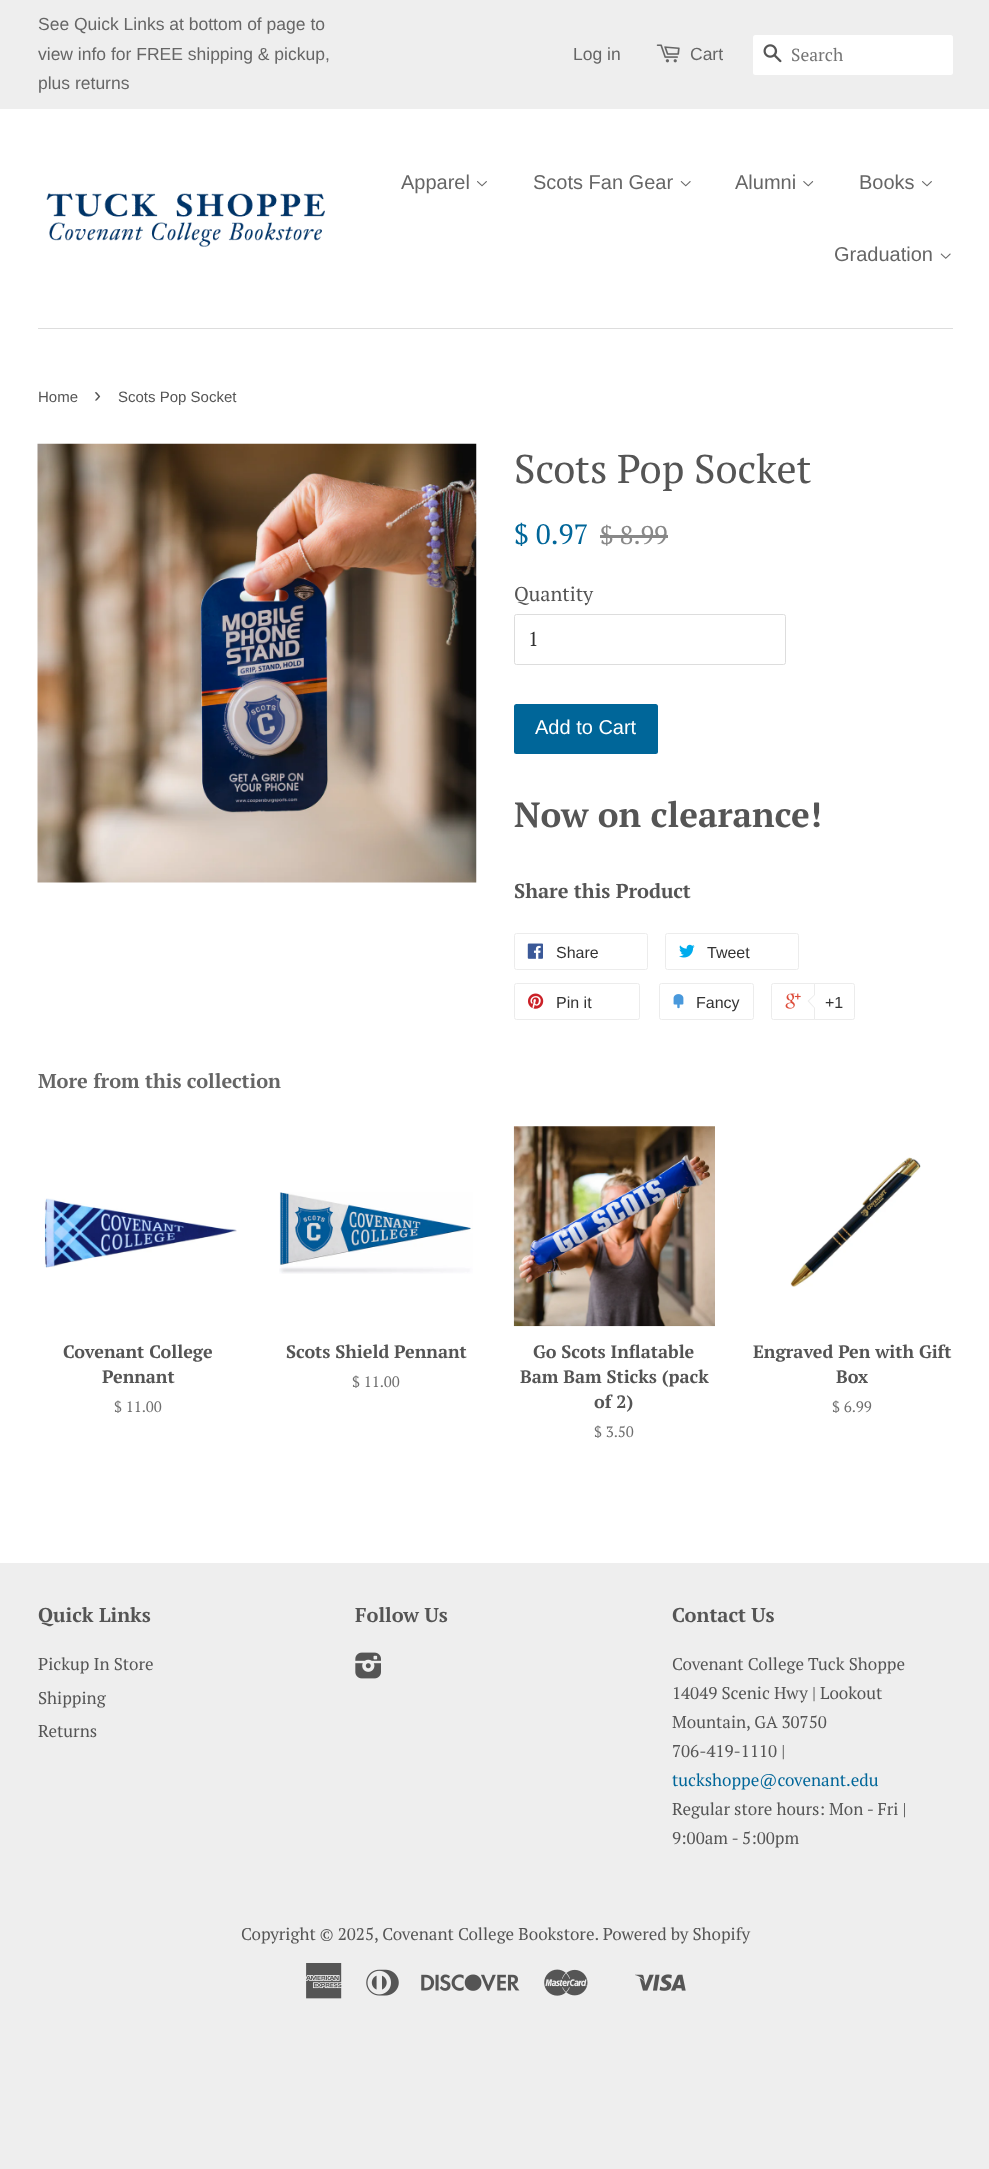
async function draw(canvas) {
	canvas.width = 989;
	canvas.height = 2169;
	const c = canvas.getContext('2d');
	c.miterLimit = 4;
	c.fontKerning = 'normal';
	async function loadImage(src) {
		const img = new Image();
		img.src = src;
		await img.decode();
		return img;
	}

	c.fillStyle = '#eee';
	c.fillRect(0, 0, 989, 2169);
	c.fillStyle = '#fff';
	c.fillRect(0, 109, 989, 1454);
	c.font = '17.5px Liberation Sans';
	c.fillStyle = '#666';
	for (const [text, x, y] of [
		['See Quick Links at bottom of page to', 38, 30],
		['view info for FREE shipping & pickup,', 38, 60],
		['plus returns', 38, 89],
		['Log in', 573, 60],
	]) {
		c.fillText(text, x, y);
	}
	c.drawImage(await loadImage('img1.png'), 656, 44, 24, 19);
	c.fillText('Cart', 690, 60);
	c.fillStyle = '#fff';
	c.beginPath();
	c.roundRect(753, 35, 200, 40, 2.5);
	c.fill();
	c.drawImage(await loadImage('img2.png'), 763, 44, 19, 19);
	c.font = '17.5px PT Serif';
	c.fillStyle = '#757575';
	c.fillText('Search', 791, 61);
	c.fillStyle = '#ddd';
	c.fillRect(38, 328, 915, 1);
	c.drawImage(await loadImage('img3.png'), 46, 193, 279, 54);
	c.font = '20px Liberation Sans';
	c.fillStyle = '#666';
	c.fillText('Apparel', 401, 189);
	c.drawImage(await loadImage('img4.png'), 477, 181, 10, 6);
	c.fillText('Scots Fan Gear', 533, 189);
	c.drawImage(await loadImage('img5.png'), 680, 181, 11, 6);
	c.fillText('Alumni', 735, 189);
	c.drawImage(await loadImage('img6.png'), 803, 181, 11, 6);
	c.fillText('Books', 859, 189);
	c.drawImage(await loadImage('img4.png'), 922, 181, 10, 6);
	c.fillText('Graduation', 834, 261);
	c.drawImage(await loadImage('img7.png'), 940, 253, 11, 6);
	c.font = '15px Liberation Sans';
	c.fillStyle = '#555';
	c.fillText('Home', 38, 402);
	c.font = '21px Liberation Sans';
	c.fillText('›', 94, 402);
	c.font = '15px Liberation Sans';
	c.fillText('Scots Pop Socket', 118, 402);
	c.drawImage(await loadImage('img8.png'), 37, 443, 440, 440);
	c.font = '40px PT Serif';
	c.fillText('Scots Pop Socket', 514, 483);
	c.font = '28px PT Serif';
	c.fillStyle = '#069';
	c.fillText('$ 0.97', 514, 544);
	c.font = '25.5px PT Serif';
	c.fillStyle = '#888';
	c.fillText('$ 8.99', 600, 544);
	c.fillRect(600, 535, 68, 3);
	c.font = '20px PT Serif';
	c.fillStyle = '#555';
	c.fillText('Quantity', 514, 601);
	c.beginPath();
	c.roundRect(514.5, 614.5, 271, 50, 2);
	c.strokeStyle = '#ddd';
	c.stroke();
	c.fillStyle = '#333';
	c.fillText('1', 528, 646);
	c.fillStyle = '#069';
	c.beginPath();
	c.roundRect(514, 704, 144, 50, 2.5);
	c.fill();
	c.font = '20px Liberation Sans';
	c.fillStyle = '#fff';
	c.fillText('Add to Cart', 535, 734);
	c.font = 'bold 35px PT Serif';
	c.fillStyle = '#555';
	c.fillText('Now on clearance!', 514, 827);
	c.font = 'bold 20px PT Serif';
	c.fillText('Share this Product', 514, 898);
	c.beginPath();
	c.roundRect(514.5, 933.5, 133, 36, 2);
	c.strokeStyle = '#ececec';
	c.stroke();
	c.drawImage(await loadImage('img9.png'), 527, 943, 16, 16);
	c.font = '16px Liberation Sans';
	c.fillStyle = '#333';
	c.fillText('Share', 556, 958);
	c.beginPath();
	c.roundRect(665.5, 933.5, 133, 36, 2);
	c.stroke();
	c.drawImage(await loadImage('img10.png'), 679, 944, 16, 14);
	c.fillText('Tweet', 707, 958);
	c.beginPath();
	c.roundRect(514.5, 983.5, 125, 36, 2);
	c.stroke();
	c.drawImage(await loadImage('img11.png'), 528, 993, 16, 16);
	c.fillText('Pin it', 556, 1008);
	c.beginPath();
	c.roundRect(659.5, 983.5, 94, 36, 2);
	c.stroke();
	c.drawImage(await loadImage('img12.png'), 673, 994, 11, 15);
	c.fillText('Fancy', 696, 1008);
	c.beginPath();
	c.roundRect(771.5, 983.5, 82, 36, 2);
	c.stroke();
	c.drawImage(await loadImage('img13.png'), 785, 993, 16, 16);
	c.fillStyle = '#fff';
	c.beginPath();
	c.roundRect(814.5, 983.5, 40, 36, [0, 2, 2, 0]);
	c.fill();
	c.stroke();
	c.fillStyle = '#ececec';
	c.beginPath();
	c.moveTo(815, 994);
	c.lineTo(815, 1009);
	c.lineTo(807.5, 1001);
	c.closePath();
	c.fill();
	c.fillStyle = '#fff';
	c.beginPath();
	c.moveTo(816, 994);
	c.lineTo(816, 1009);
	c.lineTo(809, 1001);
	c.closePath();
	c.fill();
	c.fillStyle = '#333';
	c.fillText('+1', 825, 1008);
	c.font = 'bold 20px PT Serif';
	c.fillStyle = '#666';
	c.fillText('More from this collection', 38, 1088);
	c.drawImage(await loadImage('img14.png'), 44, 1198, 193, 70);
	c.font = 'bold 18px PT Serif';
	c.fillStyle = '#555';
	c.fillText('Covenant College', 63, 1358);
	c.fillText('Pennant', 102, 1383);
	c.font = '15px PT Serif';
	c.fillStyle = '#6e6e6e';
	c.fillText('$ 11.00', 114, 1412);
	c.drawImage(await loadImage('img15.png'), 279, 1192, 194, 82);
	c.font = 'bold 18px PT Serif';
	c.fillStyle = '#555';
	c.fillText('Scots Shield Pennant', 286, 1358);
	c.font = '15px PT Serif';
	c.fillStyle = '#6e6e6e';
	c.fillText('$ 11.00', 352, 1387);
	c.drawImage(await loadImage('img16.png'), 513, 1126, 202, 201);
	c.font = 'bold 18px PT Serif';
	c.fillStyle = '#555';
	for (const [text, x, y] of [
		['Go Scots Inflatable', 533, 1358],
		['Bam Bam Sticks (pack', 520, 1383],
		['of 2)', 594, 1408],
	]) {
		c.fillText(text, x, y);
	}
	c.font = '15px PT Serif';
	c.fillStyle = '#6e6e6e';
	c.fillText('$ 3.50', 594, 1437);
	c.drawImage(await loadImage('img17.png'), 790, 1157, 131, 130);
	c.font = 'bold 18px PT Serif';
	c.fillStyle = '#555';
	c.fillText('Engraved Pen with Gift', 753, 1358);
	c.fillText('Box', 836, 1383);
	c.font = '15px PT Serif';
	c.fillStyle = '#6e6e6e';
	c.fillText('$ 6.99', 832, 1412);
	c.font = 'bold 20px PT Serif';
	c.fillStyle = '#555';
	c.fillText('Quick Links', 38, 1622);
	c.font = '17px PT Serif';
	for (const [text, x, y] of [
		['Pickup In Store', 38, 1670],
		['Shipping', 38, 1704],
		['Returns', 38, 1737],
	]) {
		c.fillText(text, x, y);
	}
	c.font = 'bold 20px PT Serif';
	c.fillText('Follow Us', 355, 1622);
	c.drawImage(await loadImage('img18.png'), 355, 1652, 26, 27);
	c.fillText('Contact Us', 672, 1622);
	c.font = '17px PT Serif';
	for (const [text, x, y] of [
		['Covenant College Tuck Shoppe', 672, 1670],
		['14049 Scenic Hwy | Lookout', 672, 1699],
		['Mountain, GA 30750', 672, 1728],
		['706-419-1110 |', 672, 1757],
	]) {
		c.fillText(text, x, y);
	}
	c.fillStyle = '#069';
	c.fillText('tuckshoppe@covenant.edu', 672, 1786);
	c.fillStyle = '#555';
	for (const [text, x, y] of [
		['Regular store hours: Mon - Fri |', 672, 1815],
		['9:00am - 5:00pm', 672, 1844],
		['Copyright © 2025, Covenant College Bookstore. Powered by Shopify', 241, 1940],
	]) {
		c.fillText(text, x, y);
	}
	c.drawImage(await loadImage('img19.png'), 306, 1963, 36, 36);
	c.drawImage(await loadImage('img20.png'), 366, 1969, 33, 27);
	c.drawImage(await loadImage('img21.png'), 421, 1974, 99, 17);
	c.drawImage(await loadImage('img22.png'), 544, 1969, 44, 27);
	c.drawImage(await loadImage('img23.png'), 635, 1974, 51, 17);
}

draw(document.querySelector('canvas'));
